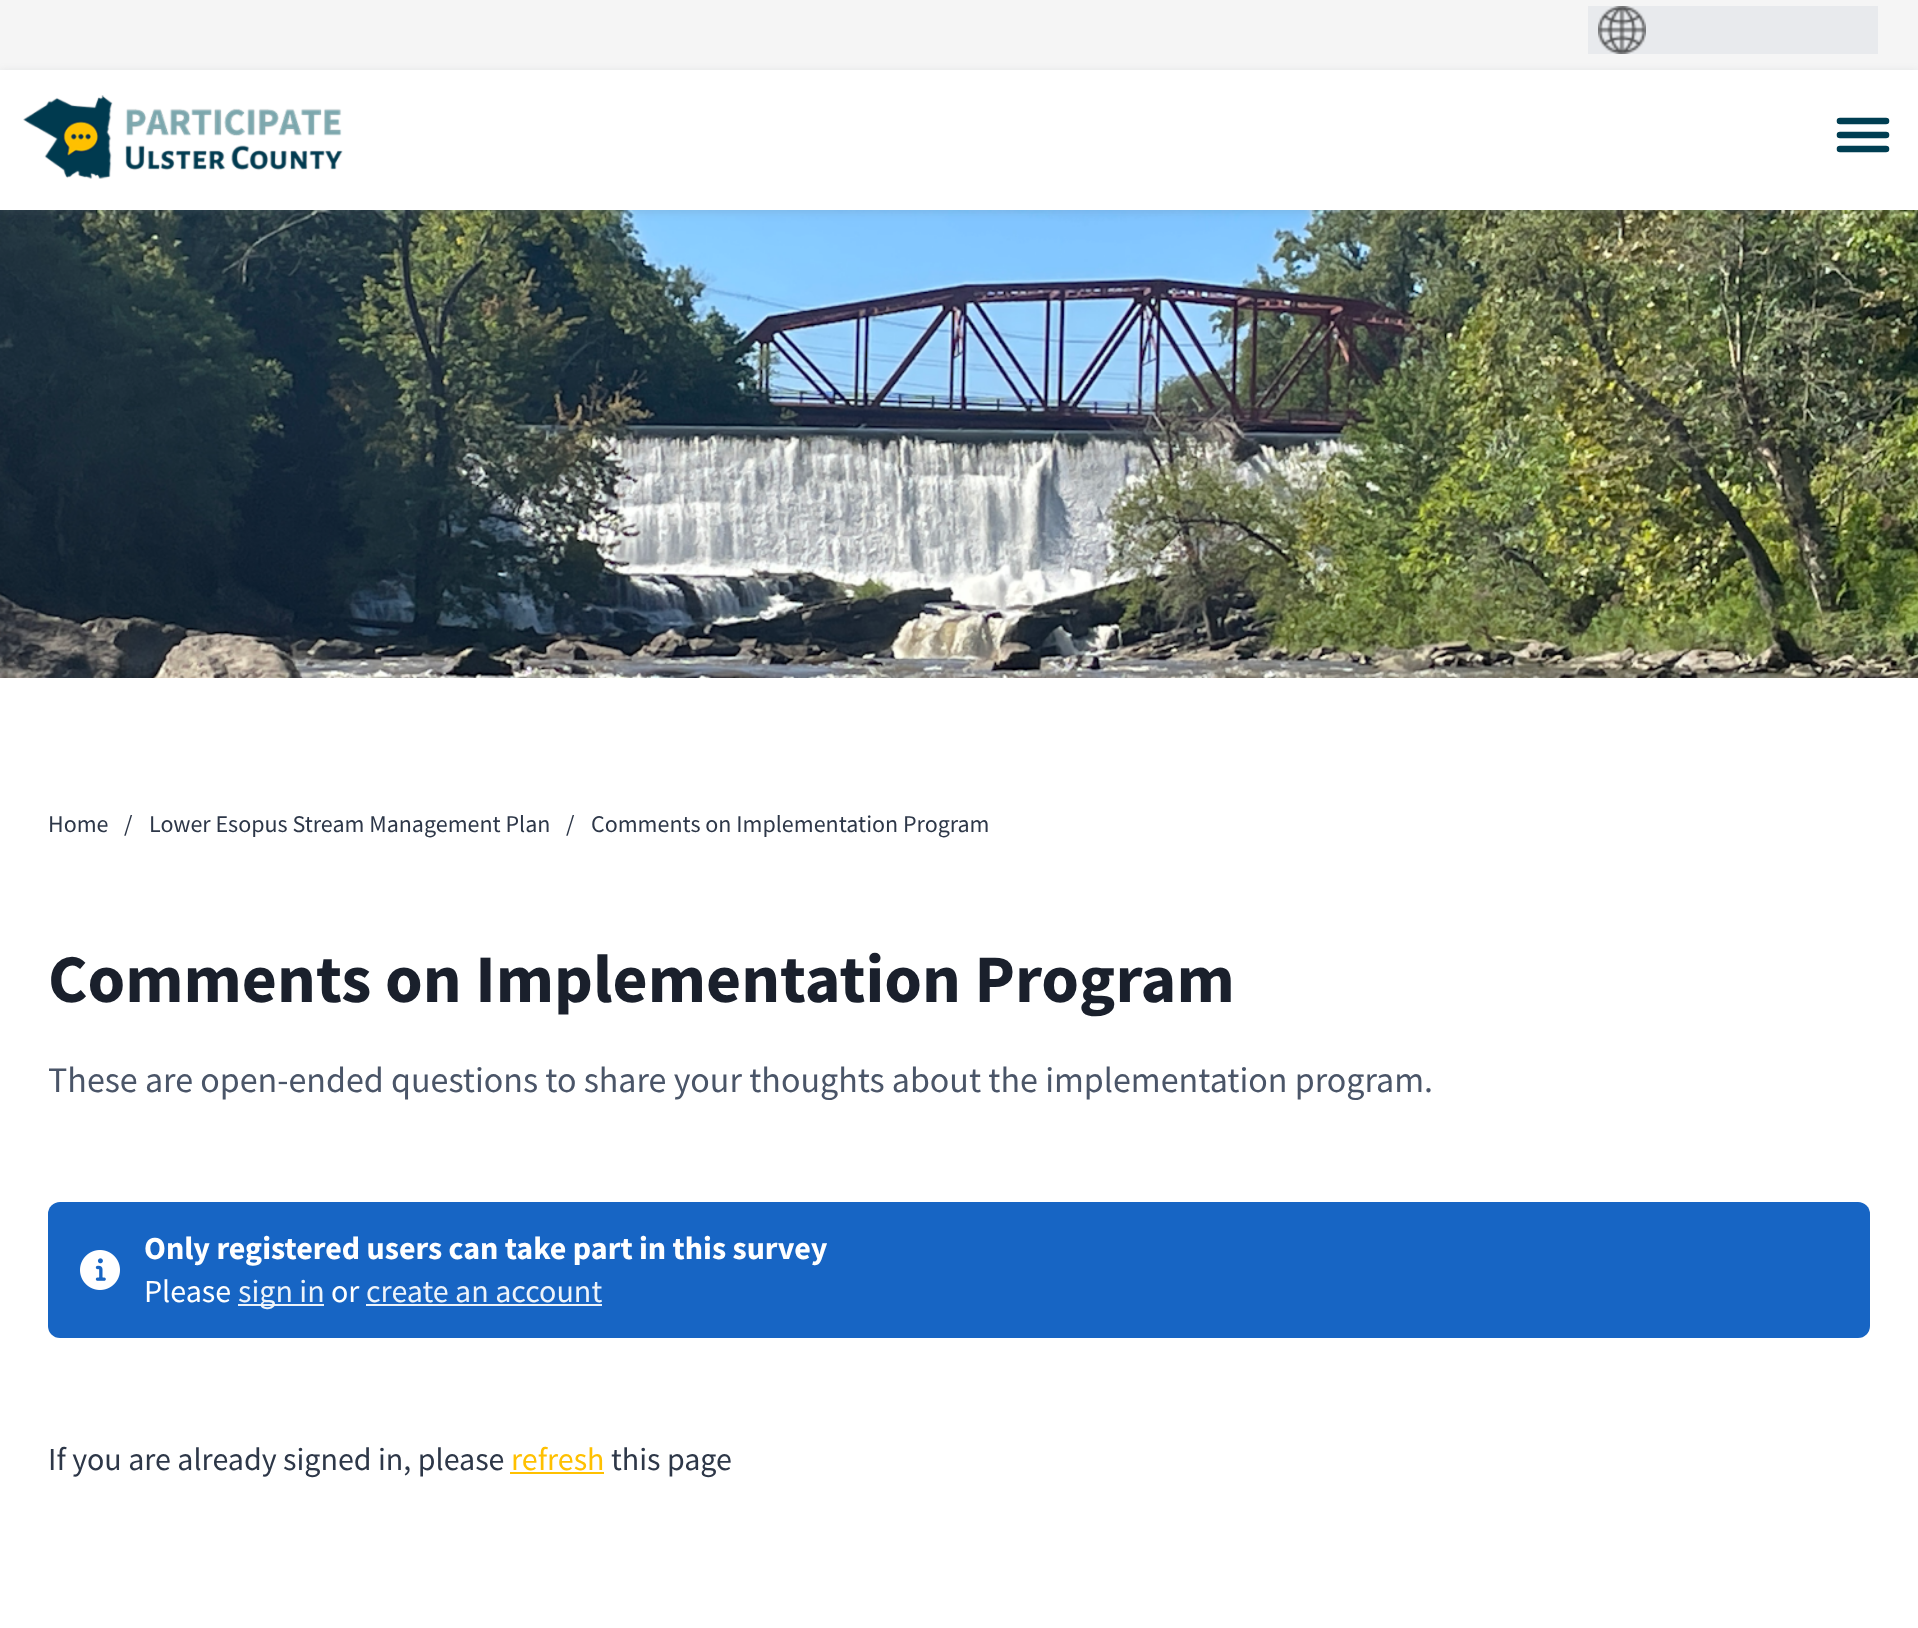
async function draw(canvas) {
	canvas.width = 1918;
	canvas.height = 1628;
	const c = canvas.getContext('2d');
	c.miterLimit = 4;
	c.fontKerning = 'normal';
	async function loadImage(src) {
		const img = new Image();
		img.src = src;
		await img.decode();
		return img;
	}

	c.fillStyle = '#fff';
	c.fillRect(0, 0, 1918, 1628);
	c.fillStyle = '#f5f5f5';
	c.fillRect(0, 0, 1918, 70);
	c.fillStyle = '#e8eaed';
	c.fillRect(1588, 6, 290, 48);
	c.drawImage(await loadImage('img1.png'), 1598, 6, 48, 48);
	c.drawImage(await loadImage('img3.png'), 0, 210, 1918, 468);
	c.save();
	c.beginPath();
	c.moveTo(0, 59);
	c.lineTo(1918, 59);
	c.lineTo(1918, 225);
	c.lineTo(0, 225);
	c.closePath();
	c.moveTo(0, 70);
	c.lineTo(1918, 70);
	c.lineTo(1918, 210);
	c.lineTo(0, 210);
	c.closePath();
	c.clip('evenodd');
	c.fillStyle = '#68737d33';
	c.filter = 'blur(4px)';
	c.beginPath();
	c.rect(0, 72, 1918, 140);
	c.fill();
	c.filter = 'none';
	c.restore();
	c.drawImage(await loadImage('img2.png'), 23, 95, 320, 84);
	c.beginPath();
	c.moveTo(1840, 121);
	c.lineTo(1886, 121);
	c.moveTo(1840, 135);
	c.lineTo(1886, 135);
	c.moveTo(1840, 149);
	c.lineTo(1886, 149);
	c.strokeStyle = '#003e52';
	c.lineWidth = 6.6;
	c.lineCap = 'round';
	c.stroke();
	c.font = '24px Source Sans Pro';
	c.fillStyle = '#2d3748';
	for (const [text, x, y] of [
		['Home', 48, 832],
		['/', 124, 832],
		['Lower Esopus Stream Management Plan', 149, 832],
		['/', 566, 832],
		['Comments on Implementation Program', 591, 832],
	]) {
		c.fillText(text, x, y);
	}
	c.font = 'bold 68px Source Sans Pro';
	c.fillStyle = '#1a202c';
	c.fillText('Comments on Implementation Program', 48, 1002);
	c.font = '36px Source Sans Pro';
	c.fillStyle = '#4a5568';
	c.fillText('These are open-ended questions to share your thoughts about the implementation program.', 48, 1092);
	c.fillStyle = '#1765c4';
	c.beginPath();
	c.roundRect(48, 1202, 1822, 136, 12);
	c.fill();
	c.drawImage(await loadImage('img4.png'), 80, 1250, 40, 40);
	c.font = 'bold 32px Source Sans Pro';
	c.fillStyle = '#fff';
	c.fillText('Only registered users can take part in this survey', 144, 1259);
	c.font = '32px Source Sans Pro';
	c.fillText('Please', 144, 1302);
	c.fillStyle = '#ecf3fa';
	c.fillRect(238, 1304, 86, 2);
	c.fillStyle = '#edf3fa';
	c.fillText('sign in', 238, 1302);
	c.fillStyle = '#fff';
	c.fillText('or', 331, 1302);
	c.fillStyle = '#edf3fa';
	c.fillText('create an account', 366, 1302);
	c.fillStyle = '#ecf3fa';
	c.fillRect(366, 1304, 236, 2);
	c.fillStyle = '#2d3748';
	c.fillText('If you are already signed in, please', 48, 1470);
	c.fillStyle = '#ffc000';
	c.fillText('refresh', 511, 1470);
	c.fillRect(510, 1472, 94, 2);
	c.fillStyle = '#2d3748';
	c.fillText('this page', 611, 1470);
}

draw(document.querySelector('canvas'));
